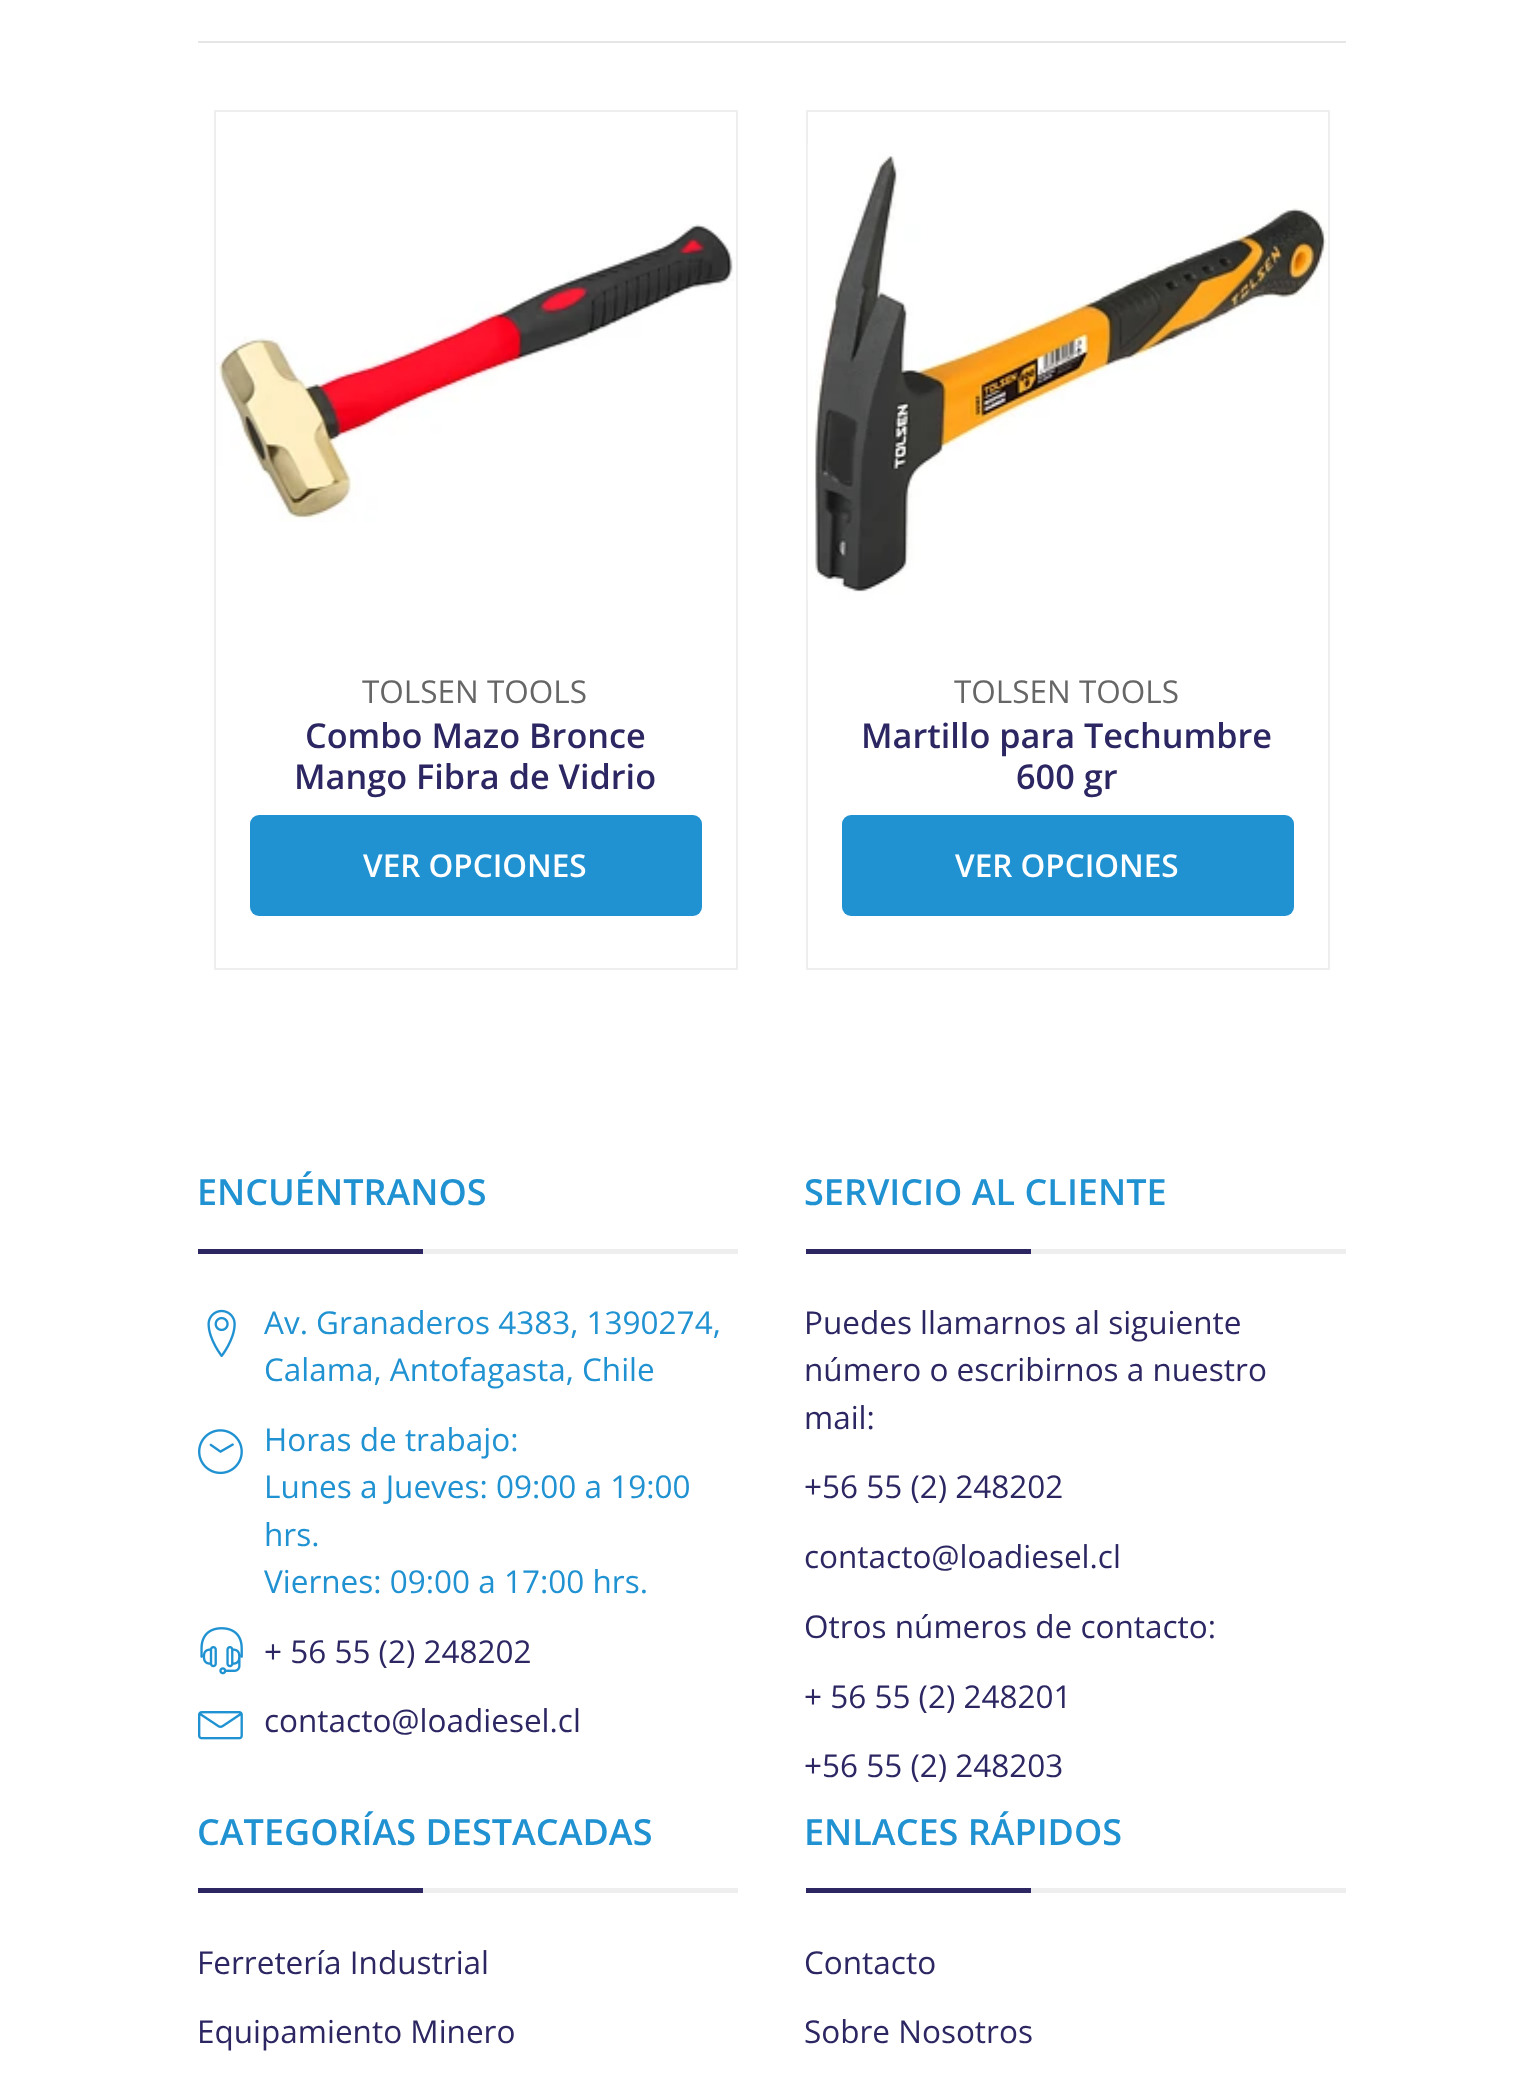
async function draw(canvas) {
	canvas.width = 1540;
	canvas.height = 2090;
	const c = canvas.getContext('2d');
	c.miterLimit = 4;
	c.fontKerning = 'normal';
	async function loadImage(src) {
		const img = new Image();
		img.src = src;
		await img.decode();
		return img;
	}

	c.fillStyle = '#fff';
	c.fillRect(0, 0, 1540, 2090);
	c.fillStyle = '#e6e6e6';
	c.fillRect(198, 41, 1148, 2);
	c.strokeStyle = '#eee';
	c.lineWidth = 2;
	c.strokeRect(215, 111, 522, 858);
	c.drawImage(await loadImage('img1.png'), 216, 224, 520, 298);
	c.font = '31.5px Open Sans';
	c.fillStyle = '#666';
	c.fillText('TOLSEN TOOLS', 362, 703);
	c.font = '600 34.25px Open Sans';
	c.fillStyle = '#2c2762';
	c.fillText('Combo Mazo Bronce', 305, 748);
	c.fillText('Mango Fibra de Vidrio', 294, 789);
	c.fillStyle = '#2092d2';
	c.beginPath();
	c.roundRect(250, 815, 452, 101, 9);
	c.fill();
	c.font = '600 31.5px Open Sans';
	c.fillStyle = '#fff';
	c.fillText('VER OPCIONES', 363, 877);
	c.strokeRect(807, 111, 522, 858);
	c.drawImage(await loadImage('img2.png'), 807, 144, 521, 456);
	c.font = '31.5px Open Sans';
	c.fillStyle = '#666';
	c.fillText('TOLSEN TOOLS', 954, 703);
	c.font = '600 34.25px Open Sans';
	c.fillStyle = '#2c2762';
	c.fillText('Martillo para Techumbre', 861, 748);
	c.fillText('600 gr', 1016, 789);
	c.fillStyle = '#2092d2';
	c.beginPath();
	c.roundRect(842, 815, 452, 101, 9);
	c.fill();
	c.font = '600 31.5px Open Sans';
	c.fillStyle = '#fff';
	c.fillText('VER OPCIONES', 955, 877);
	c.fillStyle = '#eee';
	c.fillRect(423, 1249, 315, 5);
	c.font = '600 36px Open Sans';
	c.fillStyle = '#2092d2';
	c.fillText('ENCUÉNTRANOS', 197, 1205);
	c.fillStyle = '#2c2762';
	c.fillRect(198, 1249, 225, 5);
	c.drawImage(await loadImage('img3.png'), 207, 1309, 29, 49);
	c.font = '31.5px Open Sans';
	c.fillStyle = '#2092d2';
	c.fillText('Av. Granaderos 4383, 1390274,', 264, 1334);
	c.fillText('Calama, Antofagasta, Chile', 264, 1381);
	c.drawImage(await loadImage('img4.png'), 198, 1429, 45, 46);
	for (const [text, x, y] of [
		['Horas de trabajo:', 264, 1451],
		['Lunes a Jueves: 09:00 a 19:00', 264, 1498],
		['hrs.', 264, 1546],
		['Viernes: 09:00 a 17:00 hrs.', 264, 1593],
	]) {
		c.fillText(text, x, y);
	}
	c.drawImage(await loadImage('img5.png'), 200, 1627, 43, 48);
	c.fillStyle = '#2c2762';
	c.fillText('+ 56 55 (2) 248202', 264, 1663);
	c.drawImage(await loadImage('img6.png'), 198, 1711, 45, 29);
	c.fillText('contacto@loadiesel.cl', 264, 1732);
	c.fillStyle = '#eee';
	c.fillRect(1031, 1249, 315, 5);
	c.font = '600 36px Open Sans';
	c.fillStyle = '#2092d2';
	c.fillText('SERVICIO AL CLIENTE', 804, 1205);
	c.fillStyle = '#2c2762';
	c.fillRect(806, 1249, 225, 5);
	c.font = '31.5px Open Sans';
	for (const [text, x, y] of [
		['Puedes llamarnos al siguiente', 804, 1334],
		['número o escribirnos a nuestro', 804, 1381],
		['mail:', 804, 1429],
		['+56 55 (2) 248202', 804, 1498],
		['contacto@loadiesel.cl', 804, 1568],
		['Otros números de contacto:', 804, 1638],
		['+ 56 55 (2) 248201', 804, 1708],
		['+56 55 (2) 248203', 804, 1777],
	]) {
		c.fillText(text, x, y);
	}
	c.fillStyle = '#eee';
	c.fillRect(423, 1888, 315, 5);
	c.font = '600 36px Open Sans';
	c.fillStyle = '#2092d2';
	c.fillText('CATEGORÍAS DESTACADAS', 197, 1845);
	c.fillStyle = '#2c2762';
	c.fillRect(198, 1888, 225, 5);
	c.font = '31.5px Open Sans';
	c.fillText('Ferretería Industrial', 197, 1974);
	c.fillText('Equipamiento Minero', 197, 2043);
	c.fillStyle = '#eee';
	c.fillRect(1031, 1888, 315, 5);
	c.font = '600 36px Open Sans';
	c.fillStyle = '#2092d2';
	c.fillText('ENLACES RÁPIDOS', 804, 1845);
	c.fillStyle = '#2c2762';
	c.fillRect(806, 1888, 225, 5);
	c.font = '31.5px Open Sans';
	c.fillText('Contacto', 804, 1974);
	c.fillText('Sobre Nosotros', 804, 2043);
}

draw(document.querySelector('canvas'));
